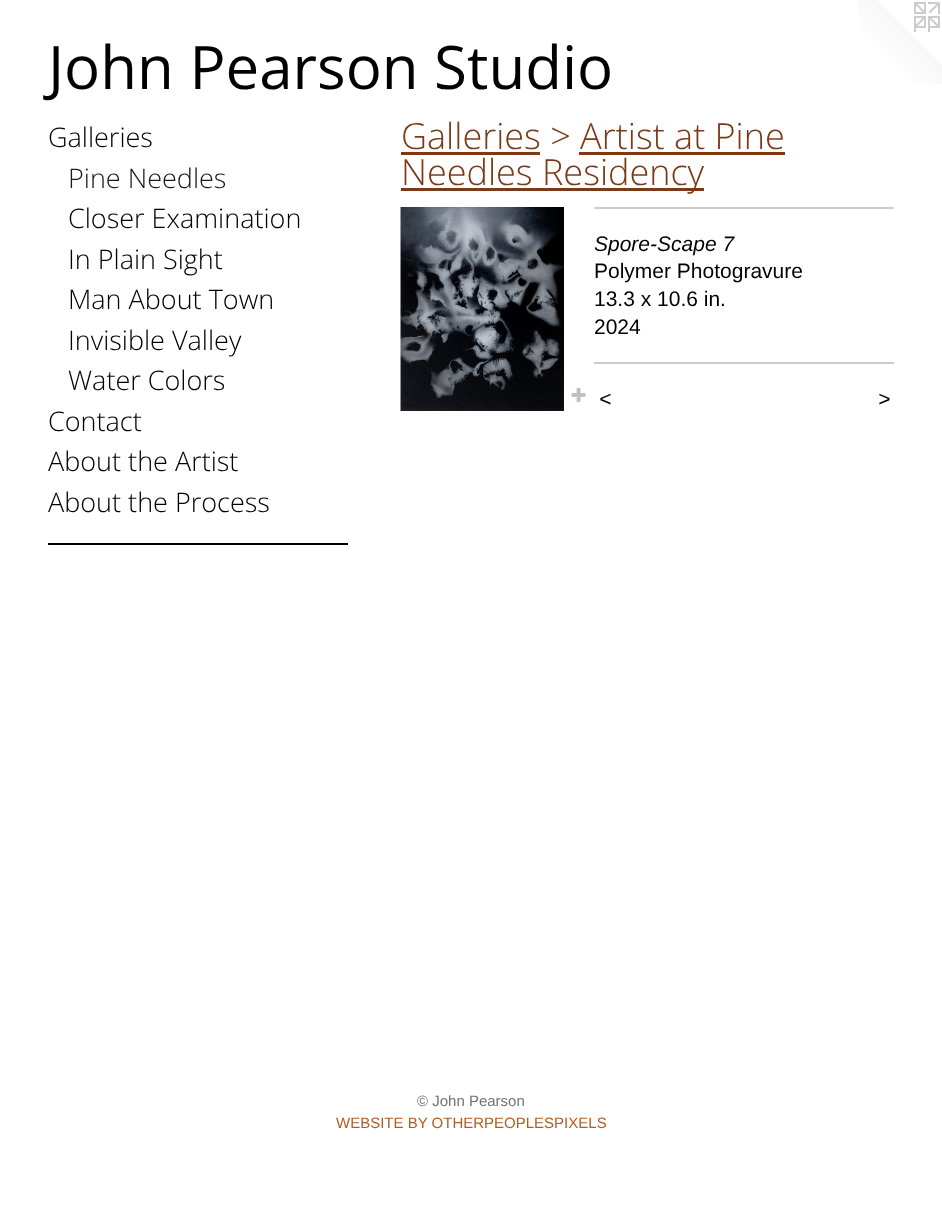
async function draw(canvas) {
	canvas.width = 942;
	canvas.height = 1208;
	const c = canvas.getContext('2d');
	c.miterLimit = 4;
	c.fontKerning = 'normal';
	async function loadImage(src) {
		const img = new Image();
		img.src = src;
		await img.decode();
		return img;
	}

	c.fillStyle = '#fff';
	c.fillRect(0, 0, 942, 1208);
	c.font = '60px Open Sans';
	c.fillStyle = '#000';
	c.fillText('John Pearson Studio', 48, 89);
	c.drawImage(await loadImage('img1.png'), 858, 0, 84, 84);
	c.font = '300 27px Open Sans';
	c.fillText('Galleries', 48, 147);
	c.fillStyle = '#1a1a1a';
	c.fillText('Pine Needles', 68, 188);
	c.fillStyle = '#000';
	for (const [text, x, y] of [
		['Closer Examination', 68, 228],
		['In Plain Sight', 68, 269],
		['Man About Town', 68, 309],
		['Invisible Valley', 68, 350],
		['Water Colors', 68, 390],
		['Contact', 48, 431],
		['About the Artist', 48, 471],
		['About the Process', 48, 512],
	]) {
		c.fillText(text, x, y);
	}
	c.fillRect(48, 543, 300, 2);
	c.font = '300 36px Open Sans';
	c.fillStyle = '#7c3918';
	c.fillText('Galleries > Artist at Pine', 401, 149);
	c.fillRect(401, 152, 139, 3);
	c.fillRect(401, 188, 303, 3);
	c.fillText('Needles Residency', 401, 185);
	c.fillRect(579, 152, 206, 3);
	c.drawImage(await loadImage('img2.png'), 400, 207, 164, 204);
	c.drawImage(await loadImage('img3.png'), 571, 387, 15, 15);
	c.fillStyle = '#ccc';
	c.fillRect(594, 207, 300, 2);
	c.font = 'italic 21px Liberation Sans';
	c.fillStyle = '#000';
	c.fillText('Spore-Scape 7', 594, 251);
	c.font = '21px Liberation Sans';
	for (const [text, x, y] of [
		['Polymer Photogravure', 594, 278],
		['13.3 x 10.6 in.', 594, 306],
		['2024', 594, 334],
	]) {
		c.fillText(text, x, y);
	}
	c.fillStyle = '#ccc';
	c.fillRect(594, 362, 300, 2);
	c.letterSpacing = '2px';
	c.font = 'italic 21px Liberation Sans';
	c.fillStyle = '#000';
	c.fillText('<', 599, 406);
	c.fillText('>', 878, 406);
	c.letterSpacing = '0px';
	c.font = '15px Liberation Sans';
	c.fillStyle = '#757270';
	c.fillText('© John Pearson', 417, 1106);
	c.fillStyle = '#b45c22';
	c.fillText('WEBSITE BY OTHERPEOPLESPIXELS', 336, 1128);
}

draw(document.querySelector('canvas'));
